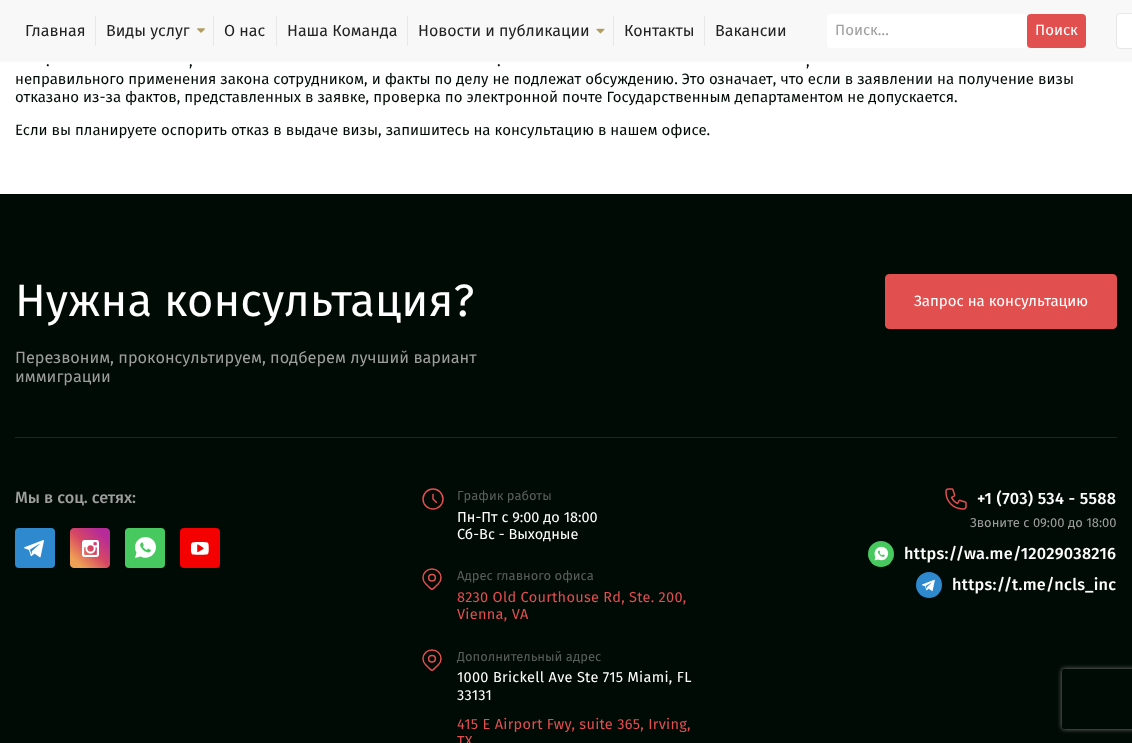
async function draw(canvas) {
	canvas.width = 1132;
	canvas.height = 743;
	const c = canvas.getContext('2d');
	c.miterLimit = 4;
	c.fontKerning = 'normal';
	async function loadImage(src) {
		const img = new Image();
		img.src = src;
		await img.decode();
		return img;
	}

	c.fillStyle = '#fff';
	c.fillRect(0, 0, 1132, 743);
	c.fillStyle = '#f8f8f8';
	c.fillRect(0, 0, 1132, 62);
	c.fillStyle = '#e8e8e8';
	c.fillRect(95, 16, 1, 30);
	c.font = '16px Fira Sans';
	c.fillStyle = '#222';
	c.fillText('Главная', 25, 36);
	c.fillStyle = '#e8e8e8';
	c.fillRect(213, 16, 1, 30);
	c.fillStyle = '#222';
	c.fillText('Виды услуг', 106, 36);
	c.drawImage(await loadImage('img1.png'), 197, 28, 8, 5);
	c.fillStyle = '#e8e8e8';
	c.fillRect(276, 16, 1, 30);
	c.fillStyle = '#222';
	c.fillText('О нас', 224, 36);
	c.fillStyle = '#e8e8e8';
	c.fillRect(407, 16, 1, 30);
	c.fillStyle = '#222';
	c.fillText('Наша Команда', 287, 36);
	c.fillStyle = '#e8e8e8';
	c.fillRect(613, 16, 1, 30);
	c.fillStyle = '#222';
	c.fillText('Новости и публикации', 418, 36);
	c.drawImage(await loadImage('img2.png'), 596, 28, 9, 6);
	c.fillStyle = '#e8e8e8';
	c.fillRect(704, 16, 1, 30);
	c.fillStyle = '#222';
	c.fillText('Контакты', 624, 36);
	c.fillText('Вакансии', 715, 36);
	c.fillStyle = '#fff';
	c.beginPath();
	c.roundRect(827, 14, 200, 34, 4);
	c.fill();
	c.font = '15px Fira Sans';
	c.fillStyle = '#9e9e9e';
	c.fillText('Поиск…', 835, 35);
	c.fillStyle = '#e14f4f';
	c.beginPath();
	c.roundRect(1027, 14, 59, 34, 4);
	c.fill();
	c.fillStyle = '#fff';
	c.fillText('Поиск', 1035, 35);
	c.beginPath();
	c.roundRect(1116.5, 13.5, 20, 35, 3.5);
	c.fill();
	c.strokeStyle = '#e8e8e8';
	c.stroke();
	c.fillStyle = '#010b05';
	for (const [text, x, y] of [
		['.', 46, 66],
		[',', 189, 66],
		['.', 497, 66],
		[',', 806, 66],
		['неправильного применения закона сотрудником, и факты по делу не подлежат обсуждению. Это означает, что если в заявлении на получение визы', 15, 84],
		['отказано из-за фактов, представленных в заявке, проверка по электронной почте Государственным департаментом не допускается.', 15, 102],
		['Если вы планируете оспорить отказ в выдаче визы, запишитесь на консультацию в нашем офисе.', 15, 135],
	]) {
		c.fillText(text, x, y);
	}
	c.fillRect(0, 194, 1132, 549);
	c.fillStyle = '#222';
	c.fillRect(15, 437, 1102, 1);
	c.font = '45.25px Fira Sans';
	c.fillStyle = '#fff';
	c.fillText('Нужна консультация?', 15, 316);
	c.font = '16.3px Fira Sans';
	c.fillStyle = '#9e9e9e';
	c.fillText('Перезвоним, проконсультируем, подберем лучший вариант', 15, 363);
	c.fillText('иммиграции', 15, 382);
	c.fillStyle = '#e14f4f';
	c.beginPath();
	c.roundRect(885.5, 274.5, 231, 54, 3.5);
	c.fill();
	c.strokeStyle = '#e14f4f';
	c.stroke();
	c.font = '15px Fira Sans';
	c.fillStyle = '#fff';
	c.fillText('Запрос на консультацию', 914, 306);
	c.font = '500 16.3px Fira Sans';
	c.fillStyle = '#9e9e9e';
	c.fillText('Мы в соц. сетях:', 15, 503);
	c.drawImage(await loadImage('img3.png'), 15, 528, 40, 40);
	c.drawImage(await loadImage('img4.png'), 70, 528, 40, 40);
	c.drawImage(await loadImage('img5.png'), 125, 528, 40, 40);
	c.drawImage(await loadImage('img6.png'), 180, 528, 40, 40);
	c.drawImage(await loadImage('img7.png'), 422, 488, 22, 22);
	c.font = '13px Fira Sans';
	c.fillStyle = '#595e5b';
	c.fillText('График работы', 457, 500);
	c.font = '14.5px Fira Sans';
	c.fillStyle = '#fff';
	c.fillText('Пн-Пт с 9:00 до 18:00', 457, 522);
	c.fillText('Сб-Вс - Выходные', 457, 539);
	c.drawImage(await loadImage('img8.png'), 422, 568, 20, 22);
	c.font = '13px Fira Sans';
	c.fillStyle = '#595e5b';
	c.fillText('Адрес главного офиса', 457, 580);
	c.letterSpacing = '0.3px';
	c.font = '14.5px Fira Sans';
	c.fillStyle = '#e14f4f';
	c.fillText('8230 Old Courthouse Rd, Ste. 200,', 457, 602);
	c.fillText('Vienna, VA', 457, 619);
	c.drawImage(await loadImage('img8.png'), 422, 649, 20, 22);
	c.letterSpacing = '0px';
	c.font = '13px Fira Sans';
	c.fillStyle = '#595e5b';
	c.fillText('Дополнительный адрес', 457, 661);
	c.letterSpacing = '0.3px';
	c.font = '14.5px Fira Sans';
	c.fillStyle = '#fff';
	c.fillText('1000 Brickell Ave Ste 715 Miami, FL', 457, 682);
	c.fillText('33131', 457, 700);
	c.fillStyle = '#e14f4f';
	c.fillText('415 E Airport Fwy, suite 365, Irving,', 457, 729);
	c.fillText('TX', 457, 746);
	c.drawImage(await loadImage('img9.png'), 945, 488, 22, 22);
	c.font = '500 16.3px Fira Sans';
	c.fillStyle = '#fff';
	c.fillText('+1 (703) 534 - 5588', 977, 504);
	c.letterSpacing = '0px';
	c.font = '13px Fira Sans';
	c.fillStyle = '#9e9e9e';
	c.fillText('Звоните с 09:00 до 18:00', 970, 527);
	c.drawImage(await loadImage('img10.png'), 868, 541, 26, 26);
	c.letterSpacing = '0.3px';
	c.font = '500 16.3px Fira Sans';
	c.fillStyle = '#fff';
	c.fillText('https://wa.me/12029038216', 904, 559);
	c.drawImage(await loadImage('img11.png'), 916, 572, 26, 26);
	c.fillText('https://t.me/ncls_inc', 952, 590);
	c.save();
	c.beginPath();
	c.moveTo(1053, 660);
	c.lineTo(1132, 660);
	c.lineTo(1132, 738);
	c.lineTo(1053, 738);
	c.closePath();
	c.moveTo(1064, 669);
	c.lineTo(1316, 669);
	c.bezierCurveTo(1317, 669, 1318, 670, 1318, 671);
	c.lineTo(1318, 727);
	c.bezierCurveTo(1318, 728, 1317, 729, 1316, 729);
	c.lineTo(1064, 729);
	c.bezierCurveTo(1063, 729, 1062, 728, 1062, 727);
	c.lineTo(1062, 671);
	c.bezierCurveTo(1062, 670, 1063, 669, 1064, 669);
	c.closePath();
	c.clip('evenodd');
	c.fillStyle = '#808080';
	c.filter = 'blur(2.5px)';
	c.beginPath();
	c.roundRect(1062, 669, 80, 60, 2);
	c.fill();
	c.filter = 'none';
	c.restore();
}

draw(document.querySelector('canvas'));
